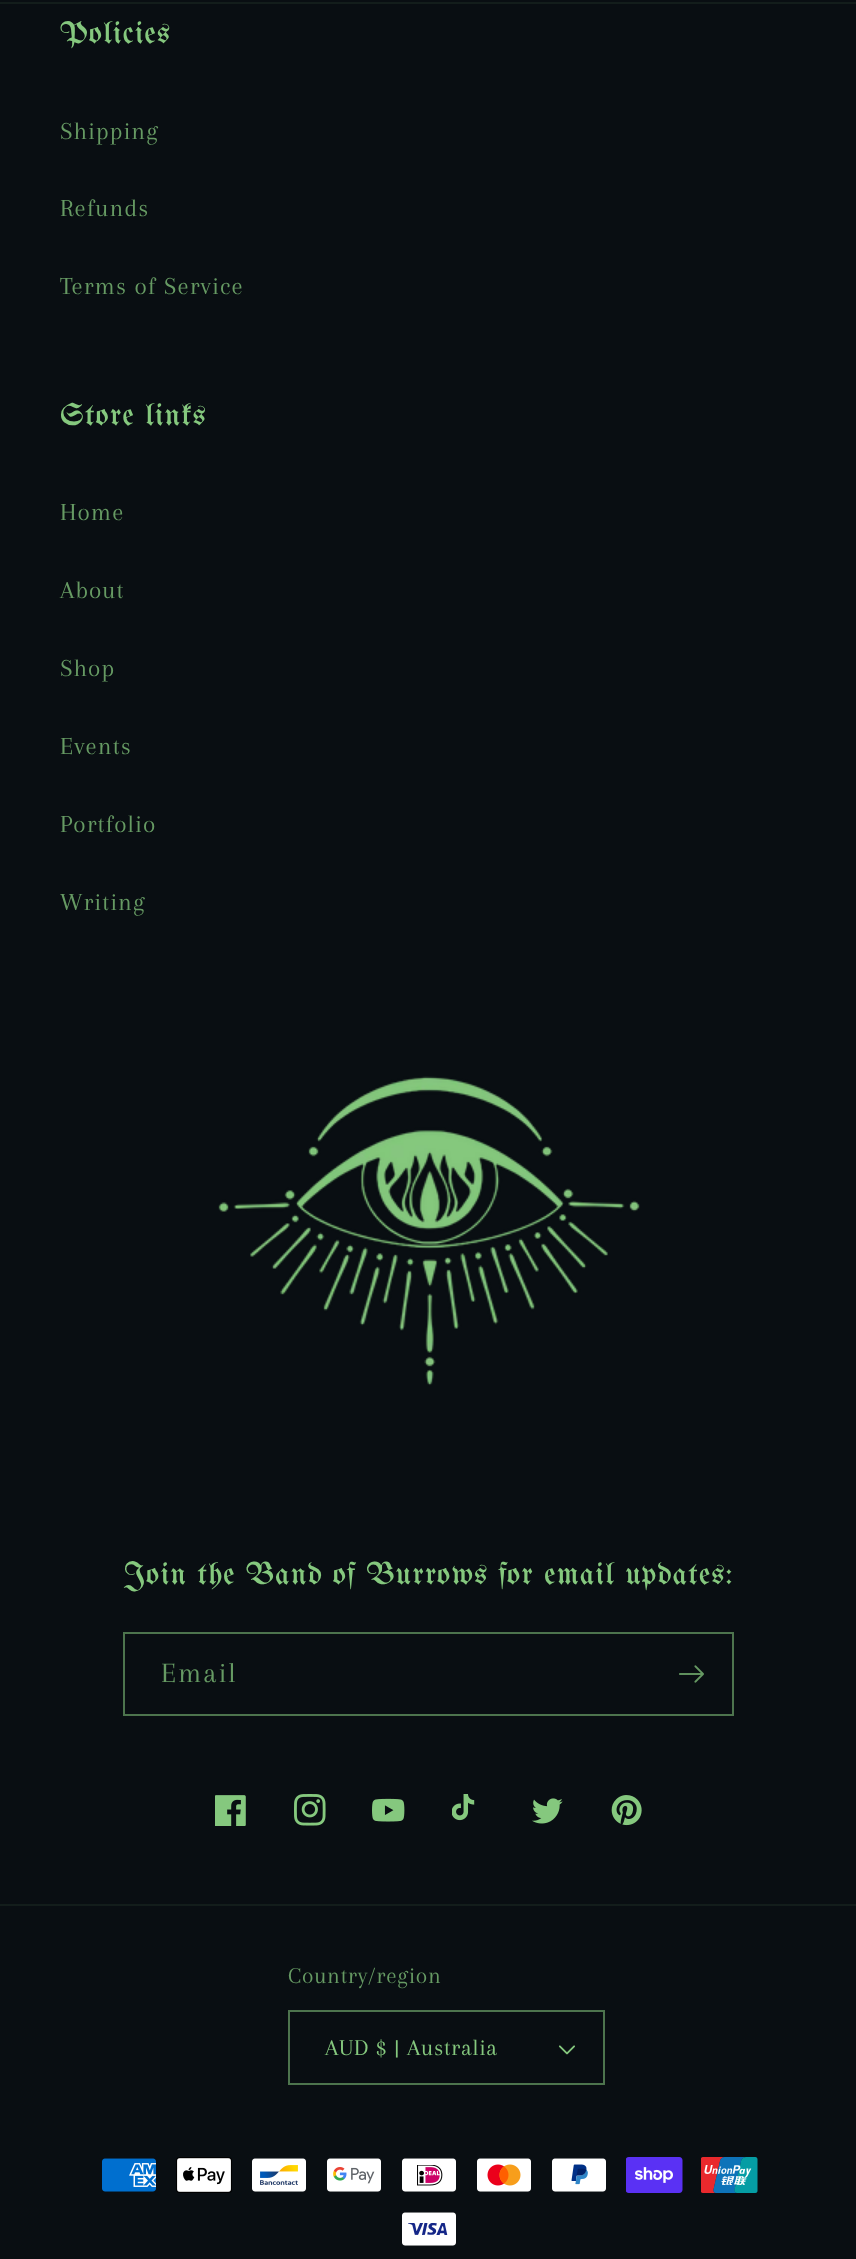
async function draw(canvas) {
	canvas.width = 856;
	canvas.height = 2259;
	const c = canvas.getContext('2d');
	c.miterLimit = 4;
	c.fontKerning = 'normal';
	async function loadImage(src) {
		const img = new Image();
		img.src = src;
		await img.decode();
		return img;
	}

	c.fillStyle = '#090e12';
	c.fillRect(0, 0, 856, 2259);
	c.fillStyle = '#131d1b';
	c.fillRect(0, 2, 856, 2);
	c.letterSpacing = '1.15px';
	c.font = '31.25px UnifrakturMaguntia';
	c.fillStyle = '#85c87e';
	c.fillText('Policies', 60, 43);
	c.letterSpacing = '1.1px';
	c.font = '25.25px Arapey';
	c.fillStyle = '#669a63';
	for (const [text, x, y] of [
		['Shipping', 60, 139],
		['Refunds', 60, 216],
		['Terms of Service', 60, 294],
	]) {
		c.fillText(text, x, y);
	}
	c.letterSpacing = '1.15px';
	c.font = '31.25px UnifrakturMaguntia';
	c.fillStyle = '#85c87e';
	c.fillText('Store links', 60, 425);
	c.letterSpacing = '1.1px';
	c.font = '25.25px Arapey';
	c.fillStyle = '#669a63';
	for (const [text, x, y] of [
		['Home', 60, 520],
		['About', 60, 598],
		['Shop', 60, 676],
		['Events', 60, 754],
		['Portfolio', 60, 832],
		['Writing', 60, 910],
	]) {
		c.fillText(text, x, y);
	}
	c.drawImage(await loadImage('img1.png'), 218, 1076, 422, 310);
	c.letterSpacing = '1.15px';
	c.font = '31.25px UnifrakturMaguntia';
	c.fillStyle = '#85c87e';
	c.fillText('Join the Band of Burrows for email updates:', 123, 1584);
	c.strokeStyle = '#4d744d';
	c.lineWidth = 2;
	c.strokeRect(124, 1633, 609, 82);
	c.letterSpacing = '2px';
	c.font = '29px Arapey';
	c.fillStyle = '#669a63';
	c.fillText('Email', 161, 1682);
	c.drawImage(await loadImage('img2.png'), 679, 1665, 25, 18);
	c.drawImage(await loadImage('img3.png'), 215, 1795, 31, 31);
	c.drawImage(await loadImage('img4.png'), 294, 1794, 32, 32);
	c.drawImage(await loadImage('img5.png'), 372, 1798, 33, 24);
	c.drawImage(await loadImage('img6.png'), 452, 1794, 23, 27);
	c.drawImage(await loadImage('img7.png'), 532, 1798, 31, 26);
	c.drawImage(await loadImage('img8.png'), 611, 1795, 31, 31);
	c.fillStyle = '#131d1b';
	c.fillRect(0, 1904, 856, 2);
	c.letterSpacing = '0.75px';
	c.font = '23.5px Arapey';
	c.fillStyle = '#669a63';
	c.fillText('Country/region', 288, 1983);
	c.drawImage(await loadImage('img9.png'), 558, 2045, 17, 10);
	c.strokeRect(289, 2011, 315, 73);
	c.fillStyle = '#85c87e';
	c.fillText('AUD $ | Australia', 325, 2055);
	c.drawImage(await loadImage('img10.png'), 102, 2158, 54, 34);
	c.drawImage(await loadImage('img11.png'), 176, 2157, 56, 36);
	c.drawImage(await loadImage('img12.png'), 252, 2158, 54, 34);
	c.drawImage(await loadImage('img13.png'), 327, 2158, 54, 34);
	c.drawImage(await loadImage('img14.png'), 402, 2158, 54, 34);
	c.drawImage(await loadImage('img15.png'), 477, 2158, 54, 34);
	c.drawImage(await loadImage('img16.png'), 552, 2158, 54, 34);
	c.drawImage(await loadImage('img17.png'), 626, 2157, 57, 36);
	c.drawImage(await loadImage('img18.png'), 701, 2157, 57, 36);
	c.drawImage(await loadImage('img19.png'), 402, 2212, 54, 34);
}

draw(document.querySelector('canvas'));
